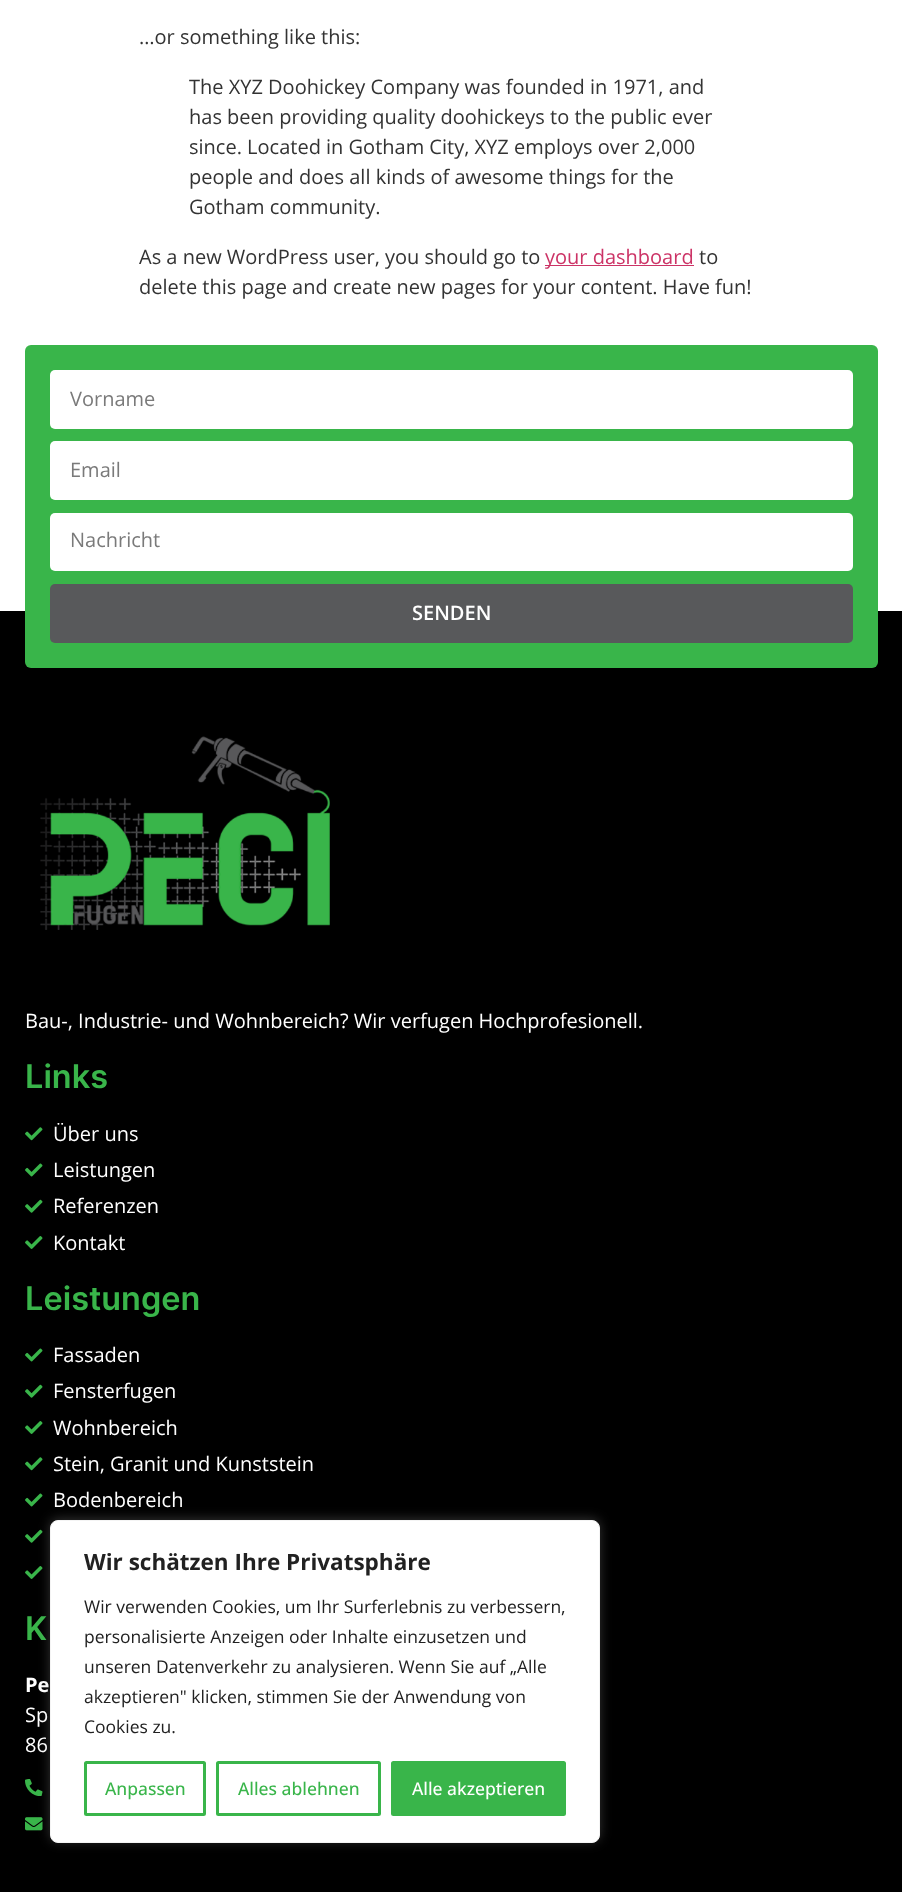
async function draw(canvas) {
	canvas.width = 902;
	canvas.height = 1892;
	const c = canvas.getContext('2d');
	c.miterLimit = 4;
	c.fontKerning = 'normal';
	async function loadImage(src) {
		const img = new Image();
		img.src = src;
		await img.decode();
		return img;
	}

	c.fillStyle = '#fff';
	c.fillRect(0, 0, 902, 1892);
	c.font = '20px Open Sans';
	c.fillStyle = '#333';
	for (const [text, x, y] of [
		['…or something like this:', 139, 44],
		['The XYZ Doohickey Company was founded in 1971, and', 189, 94],
		['has been providing quality doohickeys to the public ever', 189, 124],
		['since. Located in Gotham City, XYZ employs over 2,000', 189, 154],
		['people and does all kinds of awesome things for the', 189, 184],
		['Gotham community.', 189, 214],
		['As a new WordPress user, you should go to', 139, 264],
	]) {
		c.fillText(text, x, y);
	}
	c.fillStyle = '#c36';
	c.fillRect(545, 265, 149, 1);
	c.fillText('your dashboard', 545, 264);
	c.fillStyle = '#333';
	c.fillText('to', 699, 264);
	c.fillText('delete this page and create new pages for your content. Have fun!', 139, 294);
	c.fillStyle = '#000';
	c.fillRect(0, 611, 902, 1281);
	c.fillStyle = '#39b54a';
	c.beginPath();
	c.roundRect(25, 345, 853, 323, 6);
	c.fill();
	c.fillStyle = '#fff';
	c.beginPath();
	c.roundRect(50, 370, 803, 59, 5);
	c.fill();
	c.fillStyle = '#7a7a7a';
	c.fillText('Vorname', 70, 406);
	c.fillStyle = '#fff';
	c.beginPath();
	c.roundRect(50, 441, 803, 59, 5);
	c.fill();
	c.fillStyle = '#7a7a7a';
	c.fillText('Email', 70, 477);
	c.fillStyle = '#fff';
	c.beginPath();
	c.roundRect(50, 513, 803, 58, 5);
	c.fill();
	c.fillStyle = '#7a7a7a';
	c.fillText('Nachricht', 70, 547);
	c.fillStyle = '#58595b';
	c.beginPath();
	c.roundRect(50, 584, 803, 59, 5);
	c.fill();
	c.font = '600 20px Open Sans';
	c.fillStyle = '#fff';
	c.fillText('SENDEN', 412, 620);
	c.drawImage(await loadImage('img1.png'), 40, 736, 290, 194);
	c.font = '20px Open Sans';
	c.fillText('Bau-, Industrie- und Wohnbereich? Wir verfugen Hochprofesionell.', 25, 1028);
	c.font = '600 32.5px Inter';
	c.fillStyle = '#39b54a';
	c.fillText('Links', 25, 1088);
	c.drawImage(await loadImage('img2.png'), 25, 1127, 18, 14);
	c.font = '20px Open Sans';
	c.fillStyle = '#fff';
	c.fillText('Über uns', 53, 1141);
	c.drawImage(await loadImage('img3.png'), 25, 1163, 18, 14);
	c.fillText('Leistungen', 53, 1177);
	c.drawImage(await loadImage('img4.png'), 25, 1199, 18, 14);
	c.fillText('Referenzen', 53, 1213);
	c.drawImage(await loadImage('img5.png'), 25, 1236, 18, 13);
	c.fillText('Kontakt', 53, 1250);
	c.font = '600 32.5px Inter';
	c.fillStyle = '#39b54a';
	c.fillText('Leistungen', 25, 1310);
	c.drawImage(await loadImage('img3.png'), 25, 1348, 18, 14);
	c.font = '20px Open Sans';
	c.fillStyle = '#fff';
	c.fillText('Fassaden', 53, 1362);
	c.drawImage(await loadImage('img4.png'), 25, 1384, 18, 14);
	c.fillText('Fensterfugen', 53, 1398);
	c.drawImage(await loadImage('img5.png'), 25, 1421, 18, 13);
	c.fillText('Wohnbereich', 53, 1435);
	c.drawImage(await loadImage('img2.png'), 25, 1457, 18, 14);
	c.fillText('Stein, Granit und Kunststein', 53, 1471);
	c.drawImage(await loadImage('img3.png'), 25, 1493, 18, 14);
	c.fillText('Bodenbereich', 53, 1507);
	c.drawImage(await loadImage('img4.png'), 25, 1529, 18, 14);
	c.drawImage(await loadImage('img5.png'), 25, 1566, 18, 13);
	c.font = '600 32.5px Inter';
	c.fillStyle = '#39b54a';
	c.fillText('K', 25, 1640);
	c.font = 'bold 20px Open Sans';
	c.fillStyle = '#fff';
	c.fillText('Pe', 25, 1692);
	c.font = '20px Open Sans';
	c.fillText('Sp', 25, 1722);
	c.fillText('86', 25, 1752);
	c.drawImage(await loadImage('img6.png'), 25, 1779, 18, 17);
	c.drawImage(await loadImage('img7.png'), 25, 1817, 18, 14);
	c.fillStyle = '#acabab4d';
	c.filter = 'blur(6px)';
	c.beginPath();
	c.roundRect(50, 1519, 550, 322, 8);
	c.fill();
	c.filter = 'none';
	c.fillStyle = '#fff';
	c.beginPath();
	c.roundRect(50.5, 1520.5, 549, 322, 7.5);
	c.fill();
	c.strokeStyle = '#f4f4f4';
	c.stroke();
	c.font = 'bold 22.5px Open Sans';
	c.fillStyle = '#212121';
	c.fillText('Wir schätzen Ihre Privatsphäre', 84, 1570);
	c.font = '17.5px Open Sans';
	for (const [text, x, y] of [
		['Wir verwenden Cookies, um Ihr Surferlebnis zu verbessern,', 84, 1613],
		['personalisierte Anzeigen oder Inhalte einzusetzen und', 84, 1643],
		['unseren Datenverkehr zu analysieren. Wenn Sie auf „Alle', 84, 1673],
		['akzeptieren" klicken, stimmen Sie der Anwendung von', 84, 1703],
		['Cookies zu.', 84, 1733],
	]) {
		c.fillText(text, x, y);
	}
	c.beginPath();
	c.roundRect(85.5, 1762.5, 119, 52, 1);
	c.strokeStyle = '#39b54a';
	c.lineWidth = 3;
	c.stroke();
	c.font = '500 17.5px Open Sans';
	c.fillStyle = '#39b54a';
	c.fillText('Anpassen', 105, 1795);
	c.beginPath();
	c.roundRect(217.5, 1762.5, 162, 52, 1);
	c.stroke();
	c.fillText('Alles ablehnen', 238, 1795);
	c.beginPath();
	c.roundRect(392.5, 1762.5, 172, 52, 1);
	c.fill();
	c.stroke();
	c.fillStyle = '#fff';
	c.fillText('Alle akzeptieren', 412, 1795);
}

draw(document.querySelector('canvas'));
